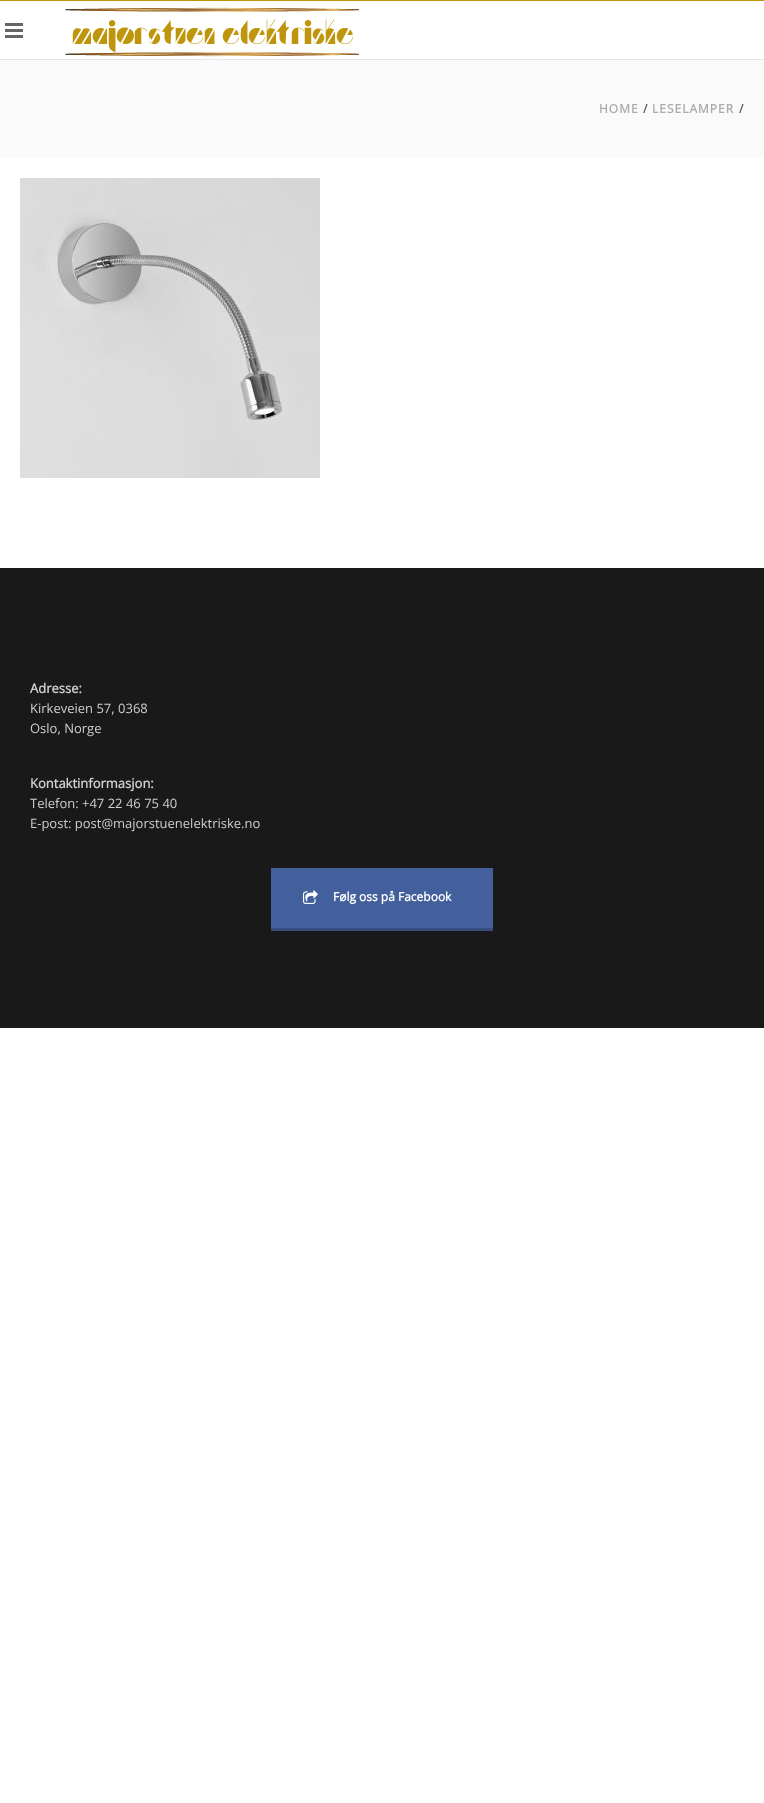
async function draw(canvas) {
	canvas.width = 764;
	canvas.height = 1803;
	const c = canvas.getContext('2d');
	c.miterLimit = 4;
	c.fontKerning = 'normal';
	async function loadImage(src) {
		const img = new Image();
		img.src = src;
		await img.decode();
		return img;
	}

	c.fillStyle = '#fff';
	c.fillRect(0, 0, 764, 1803);
	for (const [x, y, w, h, color] of [
		[0, 0, 764, 1, '#bf9508'],
		[0, 59, 764, 1, '#e6e6e6'],
		[5, 23, 18, 3, '#666'],
		[5, 29, 18, 3, '#666'],
		[5, 35, 18, 3, '#666'],
	]) {
		c.fillStyle = color;
		c.fillRect(x, y, w, h);
	}
	c.drawImage(await loadImage('img1.png'), 65, 7, 294, 50);
	c.fillStyle = '#fafafa';
	c.fillRect(0, 60, 764, 98);
	c.letterSpacing = '1px';
	c.font = 'bold 12px Open Sans';
	c.fillStyle = '#acacac';
	c.fillText('HOME', 599, 113);
	c.fillStyle = '#5e5e5e';
	c.fillText('/', 643, 113);
	c.fillStyle = '#acacac';
	c.fillText('LESELAMPER', 652, 113);
	c.fillStyle = '#5e5e5e';
	c.fillText('/', 739, 113);
	c.drawImage(await loadImage('img2.png'), 20, 178, 300, 300);
	c.fillStyle = '#191919';
	c.fillRect(0, 568, 764, 460);
	c.letterSpacing = '0px';
	c.font = 'bold 13px Open Sans';
	c.fillStyle = '#cecece';
	c.fillText('Adresse:', 30, 693);
	c.font = '13px Open Sans';
	c.fillText('Kirkeveien 57, 0368', 30, 713);
	c.fillText('Oslo, Norge', 30, 733);
	c.font = 'bold 13px Open Sans';
	c.fillText('Kontaktinformasjon:', 30, 788);
	c.font = '13px Open Sans';
	c.fillText('Telefon: +47 22 46 75 40', 30, 808);
	c.fillText('E-post: post@majorstuenelektriske.no', 30, 828);
	c.fillStyle = '#364d7d';
	c.fillRect(271, 928, 222, 3);
	c.fillStyle = '#43609c';
	c.fillRect(271, 868, 222, 60);
	c.drawImage(await loadImage('img3.png'), 303, 890, 15, 14);
	c.font = 'bold 12px Open Sans';
	c.fillStyle = '#fff';
	c.fillText('Følg oss på Facebook', 333, 901);
}

draw(document.querySelector('canvas'));
